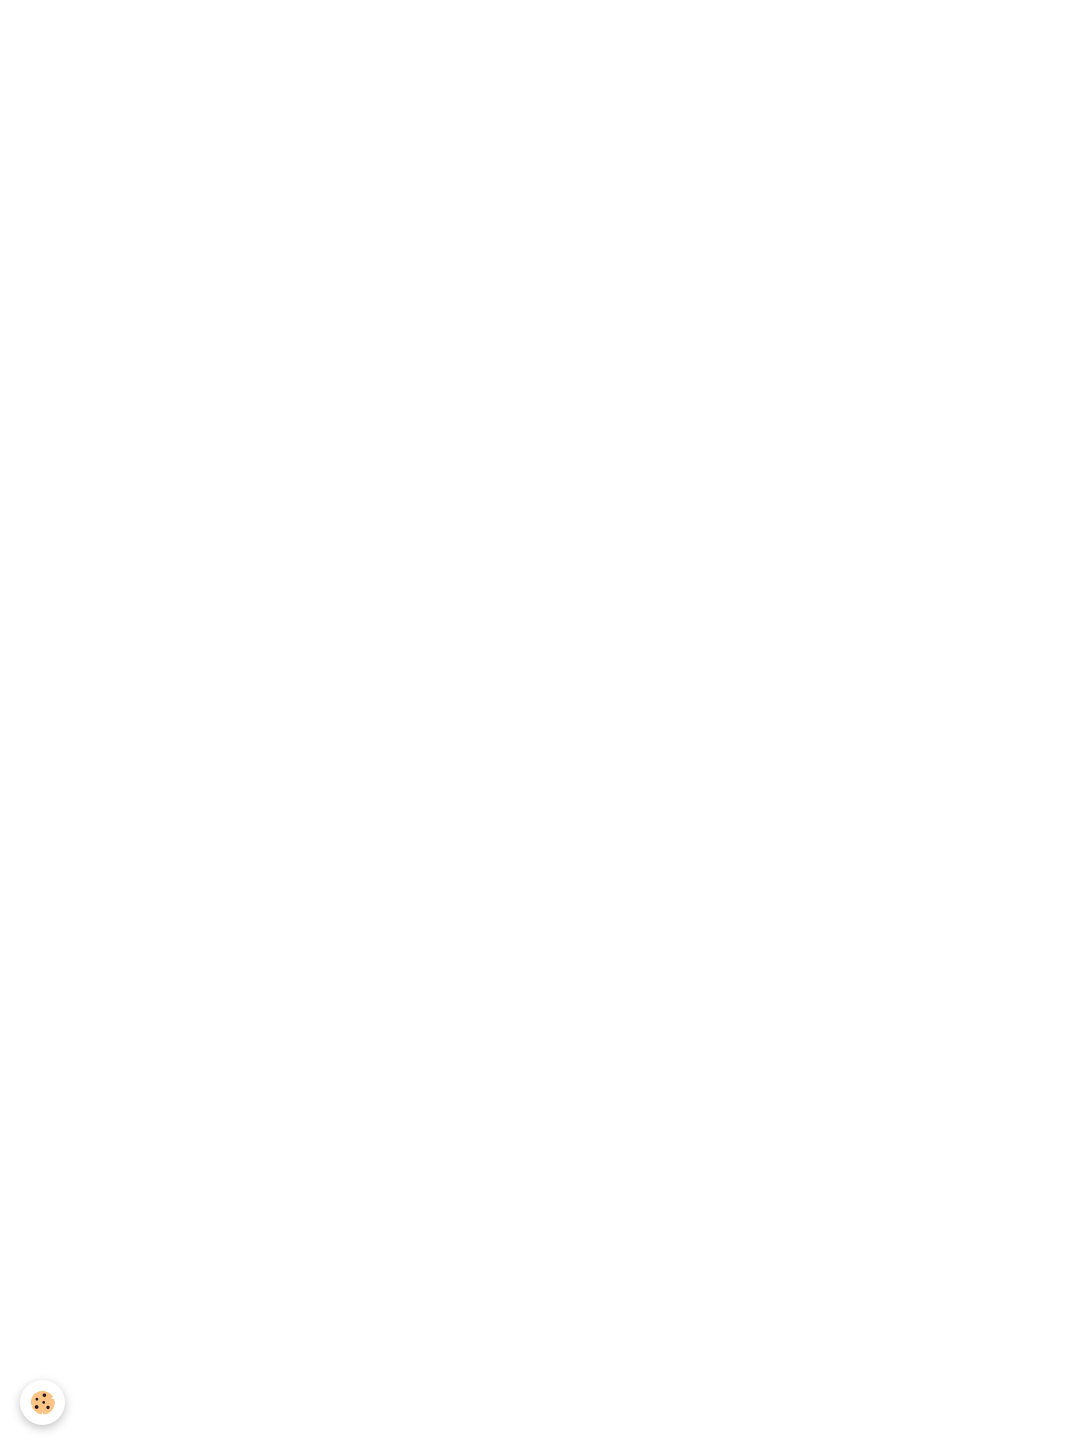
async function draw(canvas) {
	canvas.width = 1083;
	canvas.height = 1444;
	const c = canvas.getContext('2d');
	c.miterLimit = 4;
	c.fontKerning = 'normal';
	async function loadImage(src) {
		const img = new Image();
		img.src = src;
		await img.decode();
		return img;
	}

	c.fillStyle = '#fff';
	c.fillRect(0, 0, 1083, 1444);
	c.fillStyle = '#0000003d';
	c.filter = 'blur(5px)';
	c.beginPath();
	c.roundRect(20, 1383, 45, 45, 22.5);
	c.fill();
	c.filter = 'none';
	c.fillStyle = '#fff';
	c.beginPath();
	c.arc(42.5, 1402.5, 22.5, 0, 2 * Math.PI);
	c.fill();
	c.drawImage(await loadImage('img1.png'), 30, 1390, 25, 25);
}

draw(document.querySelector('canvas'));
